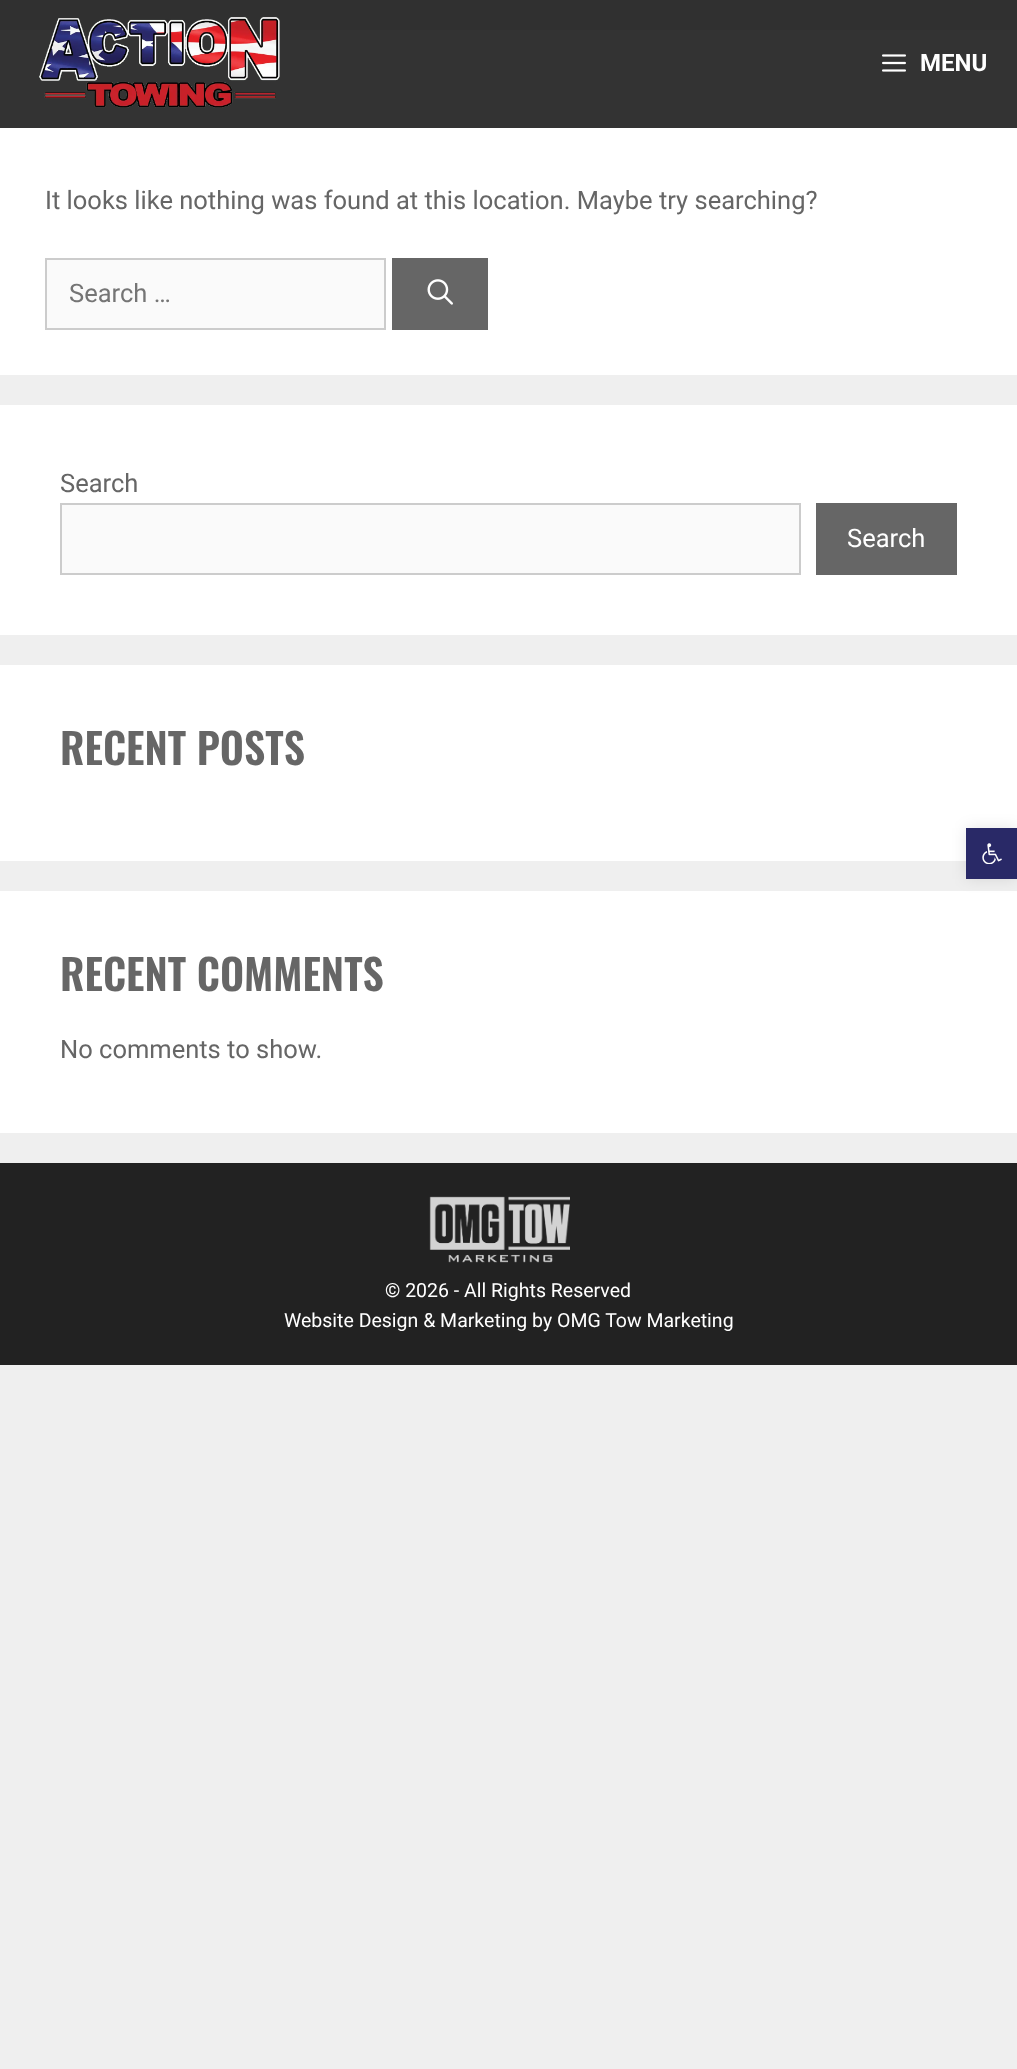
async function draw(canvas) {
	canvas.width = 1017;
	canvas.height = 2069;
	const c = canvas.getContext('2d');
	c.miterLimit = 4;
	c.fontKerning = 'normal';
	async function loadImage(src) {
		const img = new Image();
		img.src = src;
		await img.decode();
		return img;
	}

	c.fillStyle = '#efefef';
	c.fillRect(0, 0, 1017, 2069);
	c.fillStyle = '#fff';
	c.fillRect(0, 30, 1017, 345);
	c.fillStyle = '#000000cc';
	c.fillRect(0, 0, 1017, 128);
	c.drawImage(await loadImage('img1.png'), 39, 17, 241, 91);
	c.drawImage(await loadImage('img2.png'), 882, 54, 24, 18);
	c.font = 'bold 24px Roboto';
	c.fillStyle = '#fff';
	c.fillText('MENU', 920, 71);
	c.font = '25.5px Roboto';
	c.fillStyle = '#666';
	c.fillText('It looks like nothing was found at this location. Maybe try searching?', 45, 209);
	c.fillStyle = '#fafafa';
	c.beginPath();
	c.rect(46, 259, 339, 70);
	c.fill();
	c.strokeStyle = '#ccc';
	c.lineWidth = 2;
	c.stroke();
	c.fillStyle = '#757575';
	c.fillText('Search …', 69, 302);
	c.fillStyle = '#666';
	c.fillRect(392, 258, 96, 72);
	c.drawImage(await loadImage('img3.png'), 427, 279, 26, 26);
	c.fillStyle = '#fff';
	c.fillRect(0, 405, 1017, 230);
	c.fillStyle = '#666';
	c.fillText('Search', 60, 492);
	c.fillStyle = '#fafafa';
	c.beginPath();
	c.rect(61, 504, 739, 70);
	c.fill();
	c.stroke();
	c.fillStyle = '#666';
	c.fillRect(816, 503, 141, 72);
	c.fillStyle = '#fff';
	c.fillText('Search', 847, 547);
	c.fillRect(0, 665, 1017, 196);
	c.font = '600 42px Oswald';
	c.fillStyle = '#666';
	c.fillText('RECENT POSTS', 60, 765);
	c.fillStyle = '#fff';
	c.fillRect(0, 891, 1017, 242);
	c.fillStyle = '#666';
	c.fillText('RECENT COMMENTS', 60, 991);
	c.font = '25.5px Roboto';
	c.fillText('No comments to show.', 60, 1058);
	c.fillStyle = '#0000001a';
	c.filter = 'blur(7.5px)';
	c.beginPath();
	c.rect(966, 828, 51, 51);
	c.fill();
	c.filter = 'none';
	c.fillStyle = '#292967';
	c.fillRect(966, 828, 51, 51);
	c.drawImage(await loadImage('img4.png'), 982, 843, 20, 21);
	c.fillStyle = '#222';
	c.fillRect(0, 1163, 1017, 202);
	c.drawImage(await loadImage('img5.png'), 429, 1196, 141, 67);
	c.font = '19.5px Roboto';
	c.fillStyle = '#fff';
	c.fillText('© 2026 - All Rights Reserved', 385, 1297);
	c.fillText('Website Design & Marketing by OMG Tow Marketing', 284, 1327);
}

draw(document.querySelector('canvas'));
